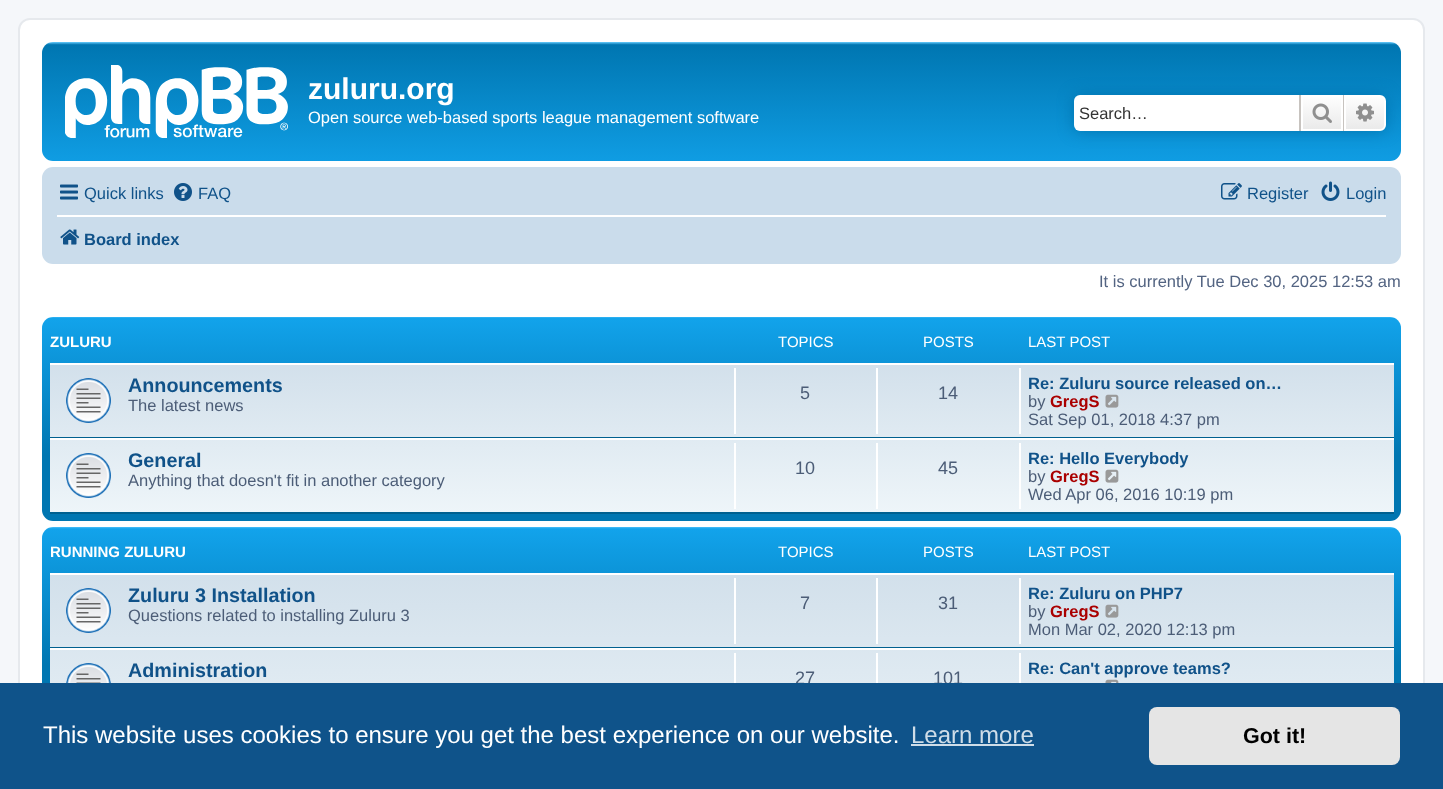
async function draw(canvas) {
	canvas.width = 1443;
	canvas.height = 789;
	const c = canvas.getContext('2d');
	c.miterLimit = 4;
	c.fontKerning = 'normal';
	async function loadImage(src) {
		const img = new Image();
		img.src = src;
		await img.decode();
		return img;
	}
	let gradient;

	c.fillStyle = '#f5f7fa';
	c.fillRect(0, 0, 1443, 789);
	c.fillStyle = '#fff';
	c.beginPath();
	c.roundRect(19, 19, 1405, 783, 11);
	c.fill();
	c.strokeStyle = '#e6e9ed';
	c.lineWidth = 2;
	c.stroke();
	gradient = c.createLinearGradient(722, 42, 722, 180);
	gradient.addColorStop(0, '#6aceff');
	gradient.addColorStop(0.02, '#0076b1');
	gradient.addColorStop(1, '#12a3eb');
	c.fillStyle = gradient;
	c.beginPath();
	c.roundRect(42, 42, 1359, 119, 11);
	c.fill();
	c.drawImage(await loadImage('img1.png'), 65, 65, 223, 73);
	c.font = 'bold 30px Liberation Sans';
	c.fillStyle = '#fff';
	c.fillText('zuluru.org', 308, 99);
	c.font = '16.5px Liberation Sans';
	c.fillText('Open source web-based sports league management software', 308, 123);
	c.fillStyle = '#0075b0';
	c.filter = 'blur(7.5px)';
	c.beginPath();
	c.roundRect(1074, 95, 312, 36, 6);
	c.fill();
	c.filter = 'none';
	c.fillStyle = '#fff';
	c.beginPath();
	c.roundRect(1074, 95, 225, 36, [6, 0, 0, 6]);
	c.fill();
	c.fillStyle = '#333';
	c.fillText('Search…', 1079, 119);
	gradient = c.createLinearGradient(1322, 95, 1322, 131);
	gradient.addColorStop(0, '#fff');
	gradient.addColorStop(1, '#e9e9e9');
	c.fillStyle = gradient;
	c.fillRect(1303, 97, 38, 32);
	c.strokeStyle = '#fff';
	c.strokeRect(1302, 96, 40, 34);
	c.fillStyle = '#c7c3bf';
	c.fillRect(1343, 95, 1, 36);
	c.fillRect(1299, 95, 2, 36);
	c.drawImage(await loadImage('img2.png'), 1312, 103, 20, 20);
	gradient = c.createLinearGradient(1365, 95, 1365, 131);
	gradient.addColorStop(0, '#fff');
	gradient.addColorStop(1, '#e9e9e9');
	c.fillStyle = gradient;
	c.beginPath();
	c.roundRect(1345, 96, 40, 34, [0, 5, 5, 0]);
	c.fill();
	c.stroke();
	c.drawImage(await loadImage('img3.png'), 1356, 103, 18, 19);
	c.fillStyle = '#cadceb';
	c.beginPath();
	c.roundRect(42, 167, 1359, 97, 11);
	c.fill();
	c.drawImage(await loadImage('img4.png'), 60, 184, 18, 16);
	c.fillStyle = '#105289';
	c.fillText('Quick links', 84, 199);
	c.drawImage(await loadImage('img5.png'), 174, 183, 18, 18);
	c.fillText('FAQ', 198, 199);
	c.drawImage(await loadImage('img6.png'), 1221, 183, 21, 17);
	c.fillText('Register', 1247, 199);
	c.drawImage(await loadImage('img7.png'), 1321, 181, 19, 20);
	c.fillText('Login', 1346, 199);
	c.fillStyle = '#fff';
	c.fillRect(57, 215, 1329, 2);
	c.drawImage(await loadImage('img8.png'), 60, 229, 20, 16);
	c.font = 'bold 16.5px Liberation Sans';
	c.fillStyle = '#105289';
	c.fillText('Board index', 84, 245);
	c.font = '16.5px Liberation Sans';
	c.fillStyle = '#536482';
	c.fillText('It is currently Tue Dec 30, 2025 12:53 am', 1099, 287);
	gradient = c.createLinearGradient(722, 316, 722, 521);
	gradient.addColorStop(0, '#6aceff');
	gradient.addColorStop(0.01, '#12a3eb');
	gradient.addColorStop(0.68, '#0076b1');
	gradient.addColorStop(1, '#0076b1');
	c.fillStyle = gradient;
	c.beginPath();
	c.roundRect(42, 317, 1359, 204, 11);
	c.fill();
	c.font = 'bold 15px Liberation Sans';
	c.fillStyle = '#fff';
	c.fillText('ZULURU', 50, 347);
	c.font = '15px Liberation Sans';
	for (const [text, x, y] of [
		['TOPICS', 778, 347],
		['POSTS', 923, 347],
		['LAST POST', 1028, 347],
	]) {
		c.fillText(text, x, y);
	}
	gradient = c.createLinearGradient(722, 363, 722, 513);
	gradient.addColorStop(0, '#d2e0eb');
	gradient.addColorStop(1, '#eef5f9');
	c.fillStyle = gradient;
	c.fillRect(50, 365, 1344, 147);
	c.fillStyle = '#fff';
	c.fillRect(50, 363, 1344, 2);
	c.fillStyle = '#00608f';
	c.fillRect(50, 437, 1344, 1);
	c.drawImage(await loadImage('img9.png'), 66, 378, 45, 45);
	c.font = 'bold 19.75px Liberation Sans';
	c.fillStyle = '#105289';
	c.fillText('Announcements', 128, 392);
	c.font = '16.5px Liberation Sans';
	c.fillStyle = '#4c5d77';
	c.fillText('The latest news', 128, 411);
	c.fillStyle = '#fff';
	c.fillRect(734, 368, 2, 66);
	c.font = '18px Liberation Sans';
	c.fillStyle = '#4c5d77';
	c.fillText('5', 800, 399);
	c.fillStyle = '#fff';
	c.fillRect(876, 368, 2, 66);
	c.fillStyle = '#4c5d77';
	c.fillText('14', 938, 399);
	c.fillStyle = '#fff';
	c.fillRect(1019, 368, 2, 66);
	c.font = 'bold 16.5px Liberation Sans';
	c.fillStyle = '#105289';
	c.fillText('Re: Zuluru source released on…', 1028, 389);
	c.font = '16.5px Liberation Sans';
	c.fillStyle = '#4c5d77';
	c.fillText('by', 1028, 407);
	c.font = 'bold 16.5px Liberation Sans';
	c.fillStyle = '#a00';
	c.fillText('GregS', 1050, 407);
	c.drawImage(await loadImage('img10.png'), 1105, 394, 14, 14);
	c.font = '16.5px Liberation Sans';
	c.fillStyle = '#4c5d77';
	c.fillText('Sat Sep 01, 2018 4:37 pm', 1028, 425);
	c.fillStyle = '#fff';
	c.fillRect(50, 438, 1344, 2);
	c.fillStyle = '#00608f';
	c.fillRect(50, 512, 1344, 2);
	c.drawImage(await loadImage('img11.png'), 66, 453, 45, 45);
	c.font = 'bold 19.75px Liberation Sans';
	c.fillStyle = '#105289';
	c.fillText('General', 128, 467);
	c.font = '16.5px Liberation Sans';
	c.fillStyle = '#4c5d77';
	c.fillText('Anything that doesn\'t fit in another category', 128, 486);
	c.fillStyle = '#fff';
	c.fillRect(734, 443, 2, 66);
	c.font = '18px Liberation Sans';
	c.fillStyle = '#4c5d77';
	c.fillText('10', 795, 474);
	c.fillStyle = '#fff';
	c.fillRect(876, 443, 2, 66);
	c.fillStyle = '#4c5d77';
	c.fillText('45', 938, 474);
	c.fillStyle = '#fff';
	c.fillRect(1019, 443, 2, 66);
	c.font = 'bold 16.5px Liberation Sans';
	c.fillStyle = '#105289';
	c.fillText('Re: Hello Everybody', 1028, 464);
	c.font = '16.5px Liberation Sans';
	c.fillStyle = '#4c5d77';
	c.fillText('by', 1028, 482);
	c.font = 'bold 16.5px Liberation Sans';
	c.fillStyle = '#a00';
	c.fillText('GregS', 1050, 482);
	c.drawImage(await loadImage('img12.png'), 1105, 469, 14, 14);
	c.font = '16.5px Liberation Sans';
	c.fillStyle = '#4c5d77';
	c.fillText('Wed Apr 06, 2016 10:19 pm', 1028, 500);
	gradient = c.createLinearGradient(722, 526, 722, 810);
	gradient.addColorStop(0, '#6aceff');
	gradient.addColorStop(0.01, '#12a3eb');
	gradient.addColorStop(0.49, '#0076b1');
	gradient.addColorStop(1, '#0076b1');
	c.fillStyle = gradient;
	c.beginPath();
	c.roundRect(42, 527, 1359, 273, 11);
	c.fill();
	c.font = 'bold 15px Liberation Sans';
	c.fillStyle = '#fff';
	c.fillText('RUNNING ZULURU', 50, 557);
	c.font = '15px Liberation Sans';
	for (const [text, x, y] of [
		['TOPICS', 778, 557],
		['POSTS', 923, 557],
		['LAST POST', 1028, 557],
	]) {
		c.fillText(text, x, y);
	}
	gradient = c.createLinearGradient(722, 573, 722, 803);
	gradient.addColorStop(0, '#d2e0eb');
	gradient.addColorStop(1, '#eef5f9');
	c.fillStyle = gradient;
	c.fillRect(50, 575, 1344, 108);
	c.fillStyle = '#fff';
	c.fillRect(50, 573, 1344, 2);
	c.fillStyle = '#00608f';
	c.fillRect(50, 647, 1344, 1);
	c.drawImage(await loadImage('img13.png'), 66, 588, 45, 45);
	c.font = 'bold 19.75px Liberation Sans';
	c.fillStyle = '#105289';
	c.fillText('Zuluru 3 Installation', 128, 602);
	c.font = '16.5px Liberation Sans';
	c.fillStyle = '#4c5d77';
	c.fillText('Questions related to installing Zuluru 3', 128, 621);
	c.fillStyle = '#fff';
	c.fillRect(734, 578, 2, 66);
	c.font = '18px Liberation Sans';
	c.fillStyle = '#4c5d77';
	c.fillText('7', 800, 609);
	c.fillStyle = '#fff';
	c.fillRect(876, 578, 2, 66);
	c.fillStyle = '#4c5d77';
	c.fillText('31', 938, 609);
	c.fillStyle = '#fff';
	c.fillRect(1019, 578, 2, 66);
	c.font = 'bold 16.5px Liberation Sans';
	c.fillStyle = '#105289';
	c.fillText('Re: Zuluru on PHP7', 1028, 599);
	c.font = '16.5px Liberation Sans';
	c.fillStyle = '#4c5d77';
	c.fillText('by', 1028, 617);
	c.font = 'bold 16.5px Liberation Sans';
	c.fillStyle = '#a00';
	c.fillText('GregS', 1050, 617);
	c.drawImage(await loadImage('img14.png'), 1105, 604, 14, 14);
	c.font = '16.5px Liberation Sans';
	c.fillStyle = '#4c5d77';
	c.fillText('Mon Mar 02, 2020 12:13 pm', 1028, 635);
	c.fillStyle = '#fff';
	c.fillRect(50, 648, 1344, 2);
	c.drawImage(await loadImage('img15.png'), 66, 663, 45, 20);
	c.font = 'bold 19.75px Liberation Sans';
	c.fillStyle = '#105289';
	c.fillText('Administration', 128, 677);
	c.fillStyle = '#fff';
	c.fillRect(734, 653, 2, 30);
	c.font = '18px Liberation Sans';
	c.fillStyle = '#4c5d77';
	c.fillText('27', 795, 684);
	c.fillStyle = '#fff';
	c.fillRect(876, 653, 2, 30);
	c.fillStyle = '#4c5d77';
	c.fillText('101', 933, 684);
	c.fillStyle = '#fff';
	c.fillRect(1019, 653, 2, 30);
	c.font = 'bold 16.5px Liberation Sans';
	c.fillStyle = '#105289';
	c.fillText('Re: Can\'t approve teams?', 1028, 674);
	c.drawImage(await loadImage('img16.png'), 1105, 679, 14, 4);
	c.fillStyle = '#0f538a';
	c.fillRect(0, 683, 1443, 106);
	c.font = '24px Liberation Sans';
	c.fillStyle = '#fff';
	c.fillText('This website uses cookies to ensure you get the best experience on our website.', 43, 743);
	c.fillStyle = '#cfdde8';
	c.fillText('Learn more', 911, 743);
	c.fillRect(911, 744, 123, 2);
	c.fillStyle = '#e5e5e5';
	c.beginPath();
	c.roundRect(1149, 707, 251, 58, 8);
	c.fill();
	c.font = 'bold 21.5px Liberation Sans';
	c.fillStyle = '#000';
	c.fillText('Got it!', 1243, 743);
}

draw(document.querySelector('canvas'));
